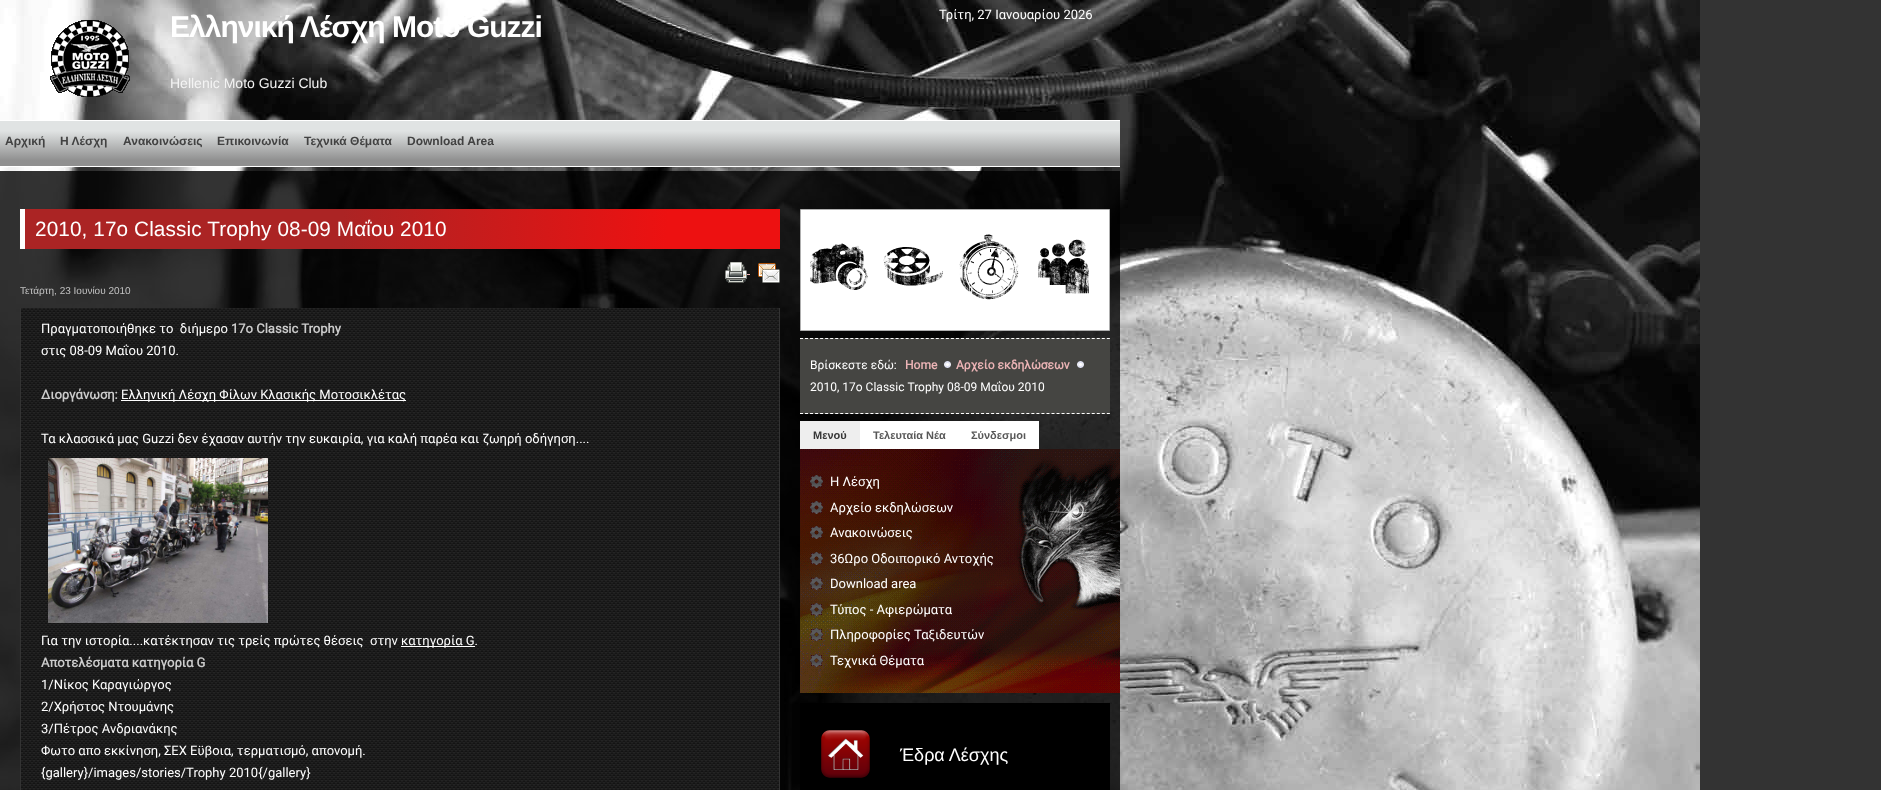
async function draw(canvas) {
	canvas.width = 1881;
	canvas.height = 790;
	const c = canvas.getContext('2d');
	c.miterLimit = 4;
	c.fontKerning = 'normal';
	async function loadImage(src) {
		const img = new Image();
		img.src = src;
		await img.decode();
		return img;
	}
	let gradient;

	c.fillStyle = '#333';
	c.fillRect(0, 0, 1881, 790);
	c.drawImage(await loadImage('img1.png'), 0, 0, 1700, 790);
	gradient = c.createLinearGradient(0, 166, 0, 121);
	gradient.addColorStop(0.12, '#8f8f8f');
	gradient.addColorStop(0.78, '#e0e3e3');
	c.fillStyle = gradient;
	c.fillRect(0, 121, 1120, 45);
	c.fillStyle = '#fff';
	c.fillRect(0, 120, 1120, 1);
	c.fillRect(0, 166, 1120, 1);
	c.font = '13px Roboto';
	c.fillText('Τρίτη, 27 Ιανουαρίου 2026', 939, 19);
	c.font = 'bold 12px Liberation Sans';
	c.fillStyle = '#424242';
	for (const [text, x, y] of [
		['Αρχική', 5, 145],
		['Η Λέσχη', 60, 145],
		['Ανακοινώσεις', 123, 145],
		['Επικοινωνία', 217, 145],
		['Τεχνικά Θέματα', 304, 145],
		['Download Area', 407, 145],
	]) {
		c.fillText(text, x, y);
	}
	c.drawImage(await loadImage('img2.png'), 50, 20, 80, 77);
	c.letterSpacing = '-1px';
	c.font = 'bold 30px Liberation Sans';
	c.fillStyle = '#fff';
	c.fillText('Ελληνική Λέσχη Moto Guzzi', 170, 37);
	c.letterSpacing = '0px';
	c.font = '14px Liberation Sans';
	c.fillStyle = '#f4f4f4';
	c.fillText('Hellenic Moto Guzzi Club', 170, 88);
	c.fillStyle = '#000000cc';
	c.fillRect(0, 171, 1120, 619);
	gradient = c.createLinearGradient(780, 249, 25, 209);
	gradient.addColorStop(0.15, '#ed1111');
	gradient.addColorStop(0.58, '#ab2424');
	c.fillStyle = gradient;
	c.fillRect(25, 209, 755, 40);
	c.fillStyle = '#fff';
	c.fillRect(20, 209, 5, 40);
	c.letterSpacing = '0.1px';
	c.font = '20.75px Liberation Sans';
	c.fillText('2010, 17o Classic Trophy 08-09 Μαΐου 2010', 35, 236);
	c.drawImage(await loadImage('img3.png'), 725, 262, 22, 21);
	c.fillStyle = '#ecb4b6';
	c.fillRect(747, 274, 3, 1);
	c.drawImage(await loadImage('img4.png'), 758, 263, 22, 21);
	c.letterSpacing = '0px';
	c.font = '10px Liberation Sans';
	c.fillStyle = '#c2c2c2';
	c.fillText('Τετάρτη, 23 Ιουνίου 2010', 20, 294);
	c.drawImage(await loadImage('img5.png'), 21, 308, 758, 482);
	c.fillStyle = '#333';
	c.fillRect(779, 308, 1, 482);
	c.fillRect(20, 308, 1, 482);
	c.font = '13px Roboto';
	c.fillStyle = '#fff';
	c.fillText('Πραγματοποιήθηκε το  διήμερο', 41, 333);
	c.font = 'bold 13px Roboto';
	c.fillStyle = '#ccc';
	c.fillText('17o Classic Trophy', 231, 333);
	c.font = '13px Roboto';
	c.fillStyle = '#fff';
	c.fillText('στις 08-09 Μαΐου 2010.', 41, 355);
	c.font = 'bold 13px Roboto';
	c.fillStyle = '#ccc';
	c.fillText('Διοργάνωση:', 41, 399);
	c.fillStyle = '#fff';
	c.fillRect(121, 400, 285, 1);
	c.font = '13px Roboto';
	c.fillText('Ελληνική Λέσχη Φίλων Κλασικής Μοτοσικλέτας', 121, 399);
	c.fillText('Τα κλασσικά μας Guzzi δεν έχασαν αυτήν την ευκαιρία, για καλή παρέα και ζωηρή οδήγηση....', 41, 443);
	c.drawImage(await loadImage('img6.png'), 48, 458, 220, 165);
	c.fillText('Για την ιστορία....κατέκτησαν τις τρείς πρώτες θέσεις  στην', 41, 645);
	c.fillRect(401, 646, 74, 1);
	c.fillText('κατηγορία G.', 401, 645);
	c.font = 'bold 13px Roboto';
	c.fillStyle = '#ccc';
	c.fillText('Αποτελέσματα κατηγορία G', 41, 667);
	c.font = '13px Roboto';
	c.fillStyle = '#fff';
	for (const [text, x, y] of [
		['1/Νίκος Καραγιώργος', 41, 689],
		['2/Χρήστος Ντουμάνης', 41, 711],
		['3/Πέτρος Ανδριανάκης', 41, 733],
		['Φωτο απο εκκίνηση, ΣΕΧ Εϋβοια, τερματισμό, απονομή.', 41, 755],
		['{gallery}/images/stories/Trophy 2010{/gallery}', 41, 777],
	]) {
		c.fillText(text, x, y);
	}
	c.beginPath();
	c.rect(800.5, 209.5, 309, 121);
	c.fill();
	c.strokeStyle = '#afafaf';
	c.stroke();
	c.drawImage(await loadImage('img7.png'), 810, 243, 58, 47);
	c.drawImage(await loadImage('img8.png'), 883, 247, 60, 39);
	c.drawImage(await loadImage('img9.png'), 959, 234, 60, 66);
	c.drawImage(await loadImage('img10.png'), 1038, 239, 51, 55);
	c.fillStyle = '#454542';
	c.fillRect(800, 338, 310, 76);
	c.beginPath();
	c.moveTo(800, 338.5);
	c.lineTo(1110, 338.5);
	c.strokeStyle = '#fff';
	c.setLineDash([3, 2.03]);
	c.stroke();
	c.beginPath();
	c.moveTo(800, 413.5);
	c.lineTo(1110, 413.5);
	c.stroke();
	c.font = '12px Roboto';
	c.fillStyle = '#fff';
	c.fillText('Βρίσκεστε εδώ:', 810, 369);
	c.font = 'bold 12px Roboto';
	c.fillStyle = '#ecb4b6';
	c.fillText('Home', 905, 369);
	c.drawImage(await loadImage('img11.png'), 944, 361, 7, 7);
	c.fillText('Αρχείο εκδηλώσεων', 956, 369);
	c.drawImage(await loadImage('img11.png'), 1077, 361, 7, 7);
	c.font = '12px Roboto';
	c.fillStyle = '#fff';
	c.fillText('2010, 17o Classic Trophy 08-09 Μαΐου 2010', 810, 391);
	c.fillStyle = '#eee';
	c.fillRect(800, 421, 60, 28);
	c.font = 'bold 11px Liberation Sans';
	c.fillStyle = '#363636';
	c.fillText('Μενού', 813, 439);
	c.fillStyle = '#fff';
	c.fillRect(860, 421, 179, 28);
	c.fillStyle = '#585858';
	c.fillText('Τελευταία Νέα', 873, 439);
	c.fillText('Σύνδεσμοι', 971, 439);
	c.drawImage(await loadImage('img12.png'), 800, 449, 320, 244);
	c.drawImage(await loadImage('img13.png'), 810, 475, 13, 13);
	c.font = '13px Roboto';
	c.fillStyle = '#fff';
	c.fillText('Η Λέσχη', 830, 486);
	c.drawImage(await loadImage('img14.png'), 810, 501, 13, 13);
	c.fillText('Αρχείο εκδηλώσεων', 830, 512);
	c.drawImage(await loadImage('img15.png'), 810, 526, 13, 13);
	c.fillText('Ανακοινώσεις', 830, 537);
	c.drawImage(await loadImage('img16.png'), 810, 552, 13, 13);
	c.fillText('36Ωρο Οδοιπορικό Αντοχής', 830, 563);
	c.drawImage(await loadImage('img17.png'), 810, 577, 13, 13);
	c.fillText('Download area', 830, 588);
	c.drawImage(await loadImage('img18.png'), 810, 603, 13, 13);
	c.fillText('Τύπος - Αφιερώματα', 830, 614);
	c.drawImage(await loadImage('img19.png'), 810, 628, 13, 13);
	c.fillText('Πληροφορίες Ταξιδευτών', 830, 639);
	c.drawImage(await loadImage('img20.png'), 810, 654, 13, 13);
	c.fillText('Τεχνικά Θέματα', 830, 665);
	c.fillStyle = '#000';
	c.fillRect(800, 703, 310, 87);
	c.drawImage(await loadImage('img21.png'), 821, 730, 49, 48);
	c.font = '18px Liberation Sans';
	c.fillStyle = '#fff';
	c.fillText('Έδρα Λέσχης', 900, 761);
}

draw(document.querySelector('canvas'));
